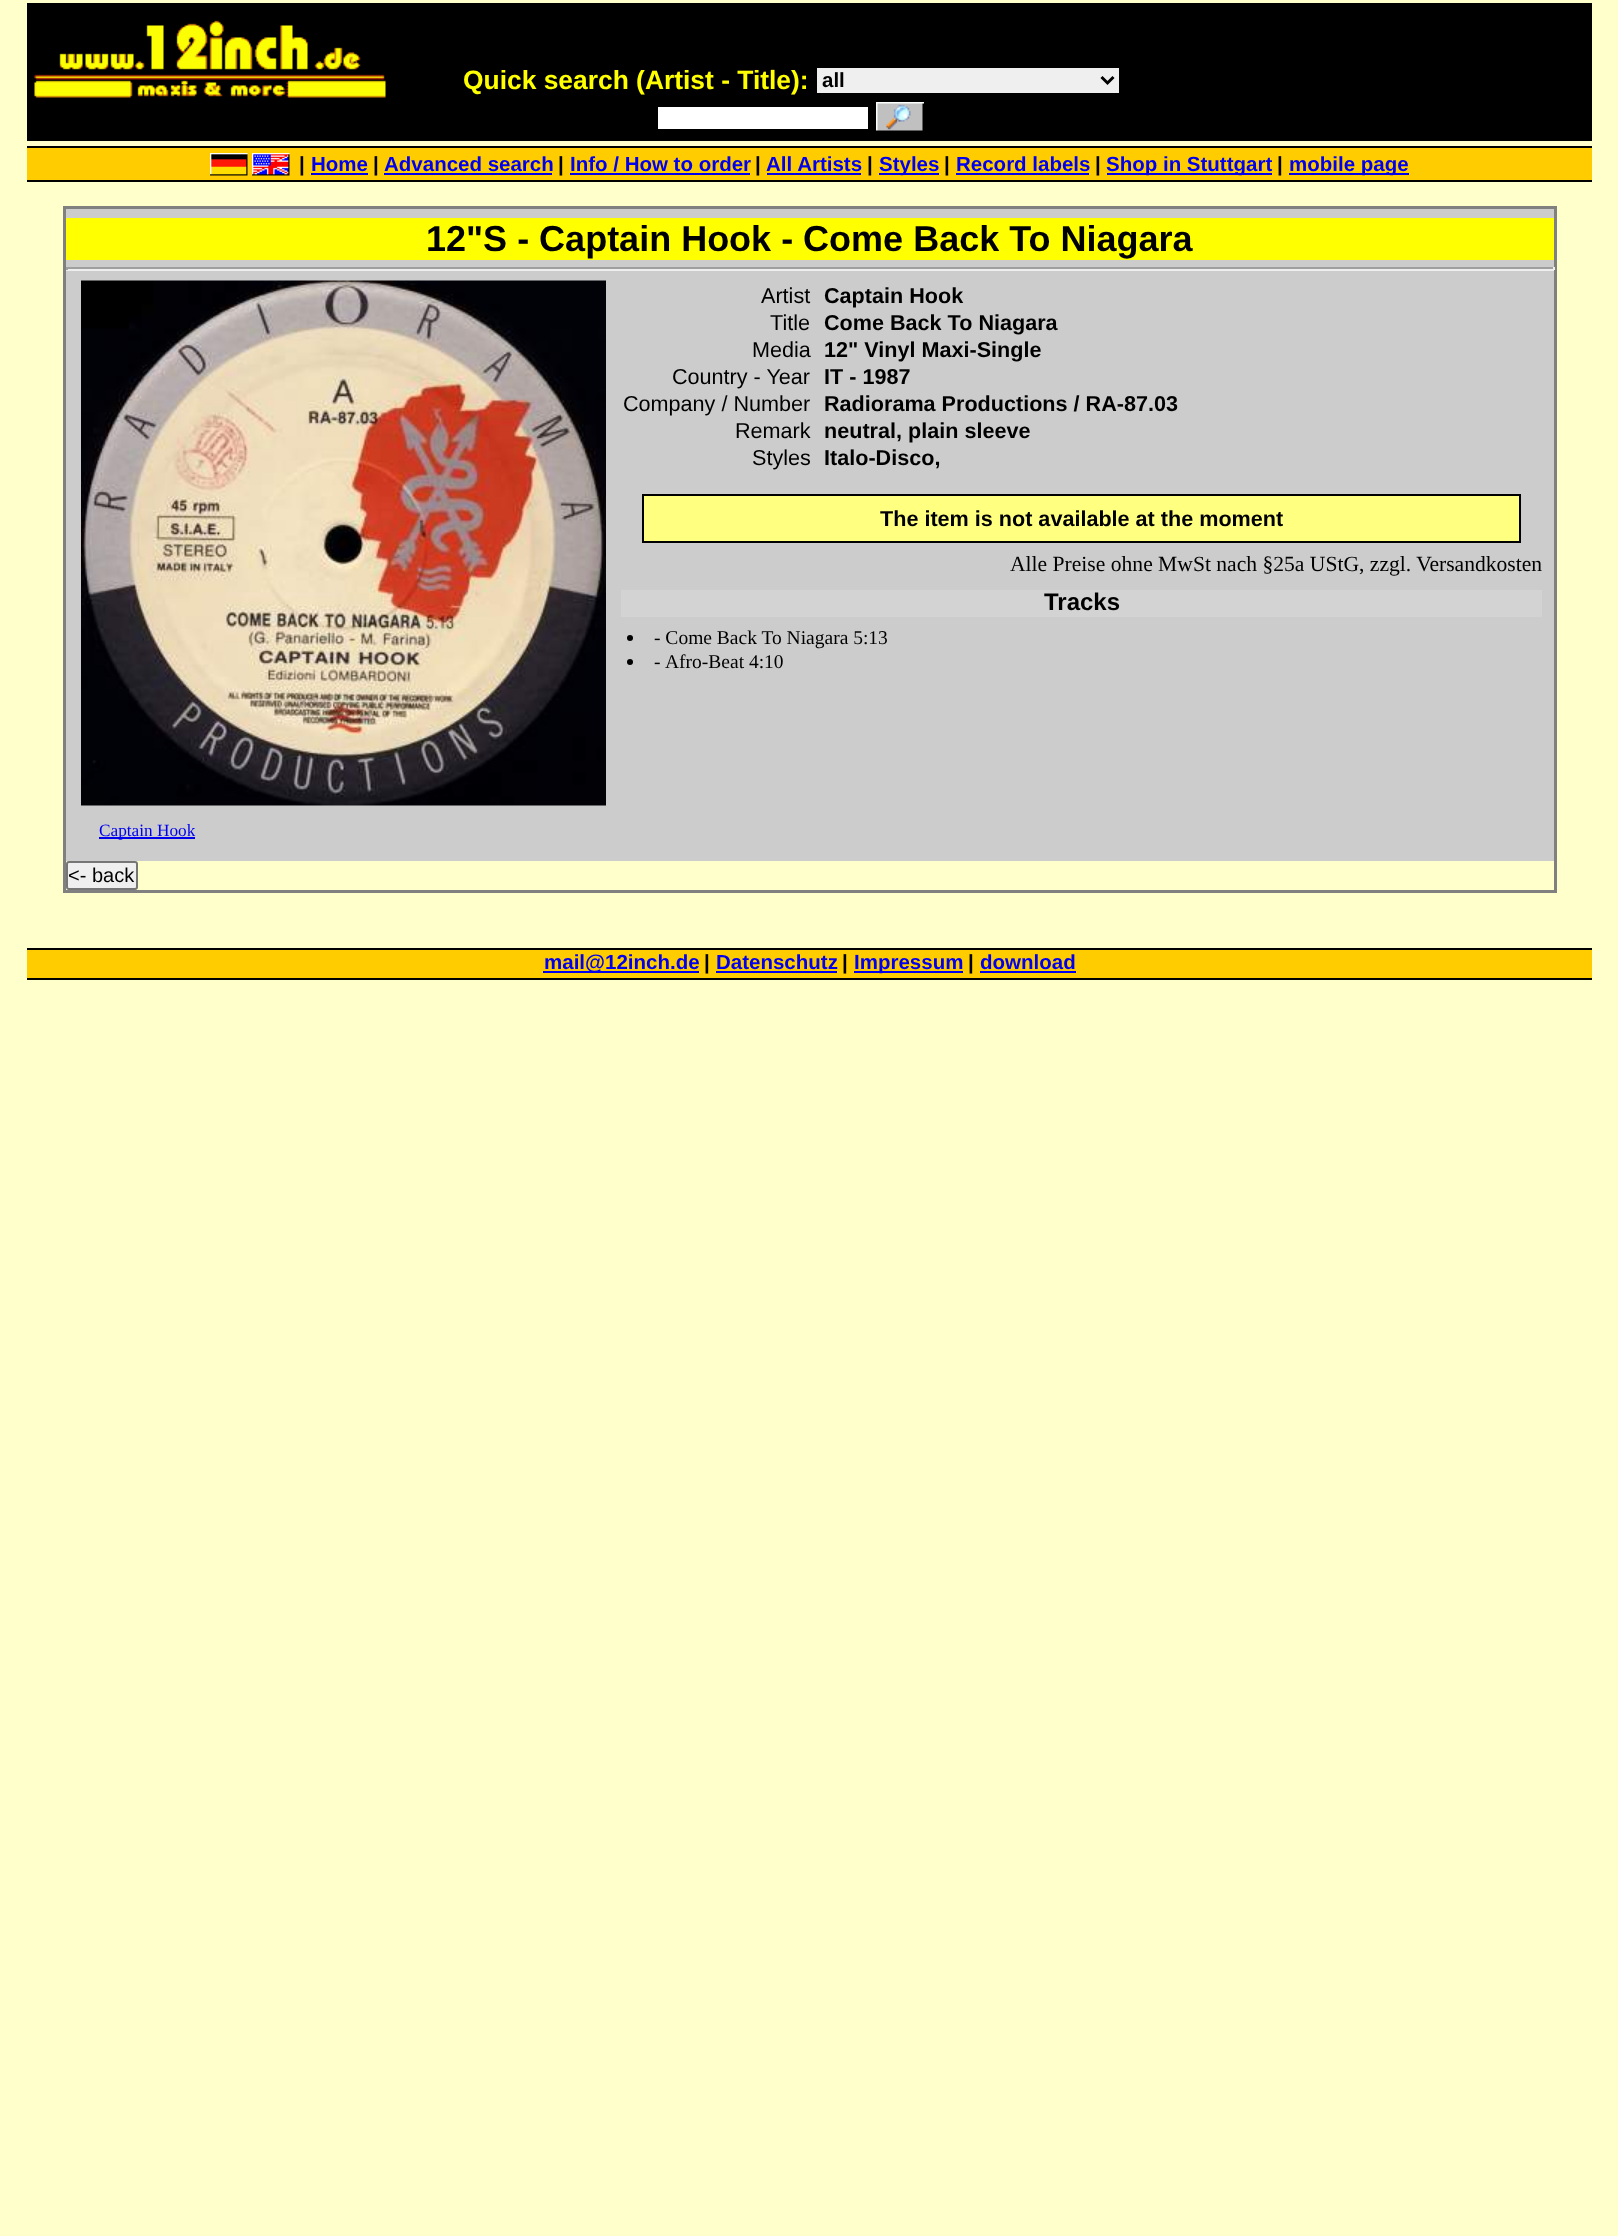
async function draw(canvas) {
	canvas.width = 1618;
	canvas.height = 2236;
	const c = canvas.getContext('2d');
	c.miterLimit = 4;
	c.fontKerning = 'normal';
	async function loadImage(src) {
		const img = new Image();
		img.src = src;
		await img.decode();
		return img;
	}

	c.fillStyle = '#ffc';
	c.fillRect(0, 0, 1618, 2236);
	c.fillStyle = '#000';
	c.fillRect(27, 3, 1565, 138);
	c.drawImage(await loadImage('img1.png'), 34, 20, 352, 78);
	c.font = 'bold 26.4px Liberation Sans';
	c.fillStyle = '#ff0';
	c.fillText('Quick search (Artist - Title):', 463, 89);
	c.fillStyle = '#efefef';
	c.fillRect(817, 68, 302, 25);
	c.beginPath();
	c.moveTo(1101.5, 77);
	c.lineTo(1107.5, 83);
	c.lineTo(1113.5, 77);
	c.strokeStyle = '#000';
	c.lineWidth = 3;
	c.stroke();
	c.font = 'bold 20.5px Liberation Sans';
	c.fillStyle = '#000';
	c.fillText('all', 822, 87);
	c.fillStyle = '#fff';
	c.fillRect(658, 107, 210, 22);
	c.drawImage(await loadImage('img2.png'), 876, 102, 48, 29);
	for (const [x, y, w, h, color] of [
		[27, 148, 1565, 32, '#fc0'],
		[27, 146, 1565, 2, '#000'],
		[27, 180, 1565, 2, '#000'],
	]) {
		c.fillStyle = color;
		c.fillRect(x, y, w, h);
	}
	c.drawImage(await loadImage('img3.png'), 210, 153, 38, 23);
	c.drawImage(await loadImage('img4.png'), 252, 153, 38, 23);
	c.fillText('|', 299, 171);
	c.fillStyle = '#00e';
	c.fillText('Home', 311, 171);
	c.fillRect(311, 173, 57, 2);
	c.fillStyle = '#000';
	c.fillText('|', 373, 171);
	c.fillStyle = '#00e';
	c.fillText('Advanced search', 384, 171);
	c.fillRect(384, 173, 168, 2);
	c.fillStyle = '#000';
	c.fillText('|', 558, 171);
	c.fillStyle = '#00e';
	c.fillText('Info / How to order', 570, 171);
	c.fillRect(570, 173, 180, 2);
	c.fillStyle = '#000';
	c.fillText('|', 755, 171);
	c.fillStyle = '#00e';
	c.fillText('All Artists', 766, 171);
	c.fillRect(767, 173, 94, 2);
	c.fillStyle = '#000';
	c.fillText('|', 867, 171);
	c.fillStyle = '#00e';
	c.fillRect(879, 173, 60, 2);
	c.fillText('Styles', 879, 171);
	c.fillStyle = '#000';
	c.fillText('|', 944, 171);
	c.fillStyle = '#00e';
	c.fillText('Record labels', 956, 171);
	c.fillRect(956, 173, 133, 2);
	c.fillStyle = '#000';
	c.fillText('|', 1095, 171);
	c.fillStyle = '#00e';
	c.fillRect(1107, 173, 165, 2);
	c.fillText('Shop in Stuttgart', 1106, 171);
	c.fillStyle = '#000';
	c.fillText('|', 1277, 171);
	c.fillStyle = '#00e';
	c.fillRect(1289, 173, 120, 2);
	c.fillText('mobile page', 1289, 171);
	c.strokeStyle = '#808080';
	c.strokeRect(64.5, 207.5, 1491, 684);
	c.fillStyle = '#ccc';
	c.fillRect(66, 209, 1488, 652);
	c.fillStyle = '#ff0';
	c.fillRect(66, 218, 1488, 42);
	c.font = 'bold 36px Liberation Sans';
	c.fillStyle = '#000';
	c.fillText('12"S - Captain Hook - Come Back To Niagara', 426, 251);
	for (const [x, y, w, h, color] of [
		[66, 267, 1488, 2, '#9f9f9f'],
		[1553, 267, 2, 3, '#eee'],
		[66, 269, 1488, 2, '#eee'],
		[66, 267, 2, 3, '#9f9f9f'],
	]) {
		c.fillStyle = color;
		c.fillRect(x, y, w, h);
	}
	c.font = '21.6px Liberation Sans';
	c.fillStyle = '#000';
	c.fillText('Artist', 761, 303);
	c.font = 'bold 21.6px Liberation Sans';
	c.fillText('Captain Hook', 824, 303);
	c.font = '21.6px Liberation Sans';
	c.fillText('Title', 770, 330);
	c.font = 'bold 21.6px Liberation Sans';
	c.fillText('Come Back To Niagara', 824, 330);
	c.font = '21.6px Liberation Sans';
	c.fillText('Media', 752, 357);
	c.font = 'bold 21.6px Liberation Sans';
	c.fillText('12" Vinyl Maxi-Single', 824, 357);
	c.font = '21.6px Liberation Sans';
	c.fillText('Country - Year', 672, 384);
	c.font = 'bold 21.6px Liberation Sans';
	c.fillText('IT - 1987', 824, 384);
	c.font = '21.6px Liberation Sans';
	c.fillText('Company / Number', 623, 411);
	c.font = 'bold 21.6px Liberation Sans';
	c.fillText('Radiorama Productions / RA-87.03', 824, 411);
	c.font = '21.6px Liberation Sans';
	c.fillText('Remark', 735, 438);
	c.font = 'bold 21.6px Liberation Sans';
	c.fillText('neutral, plain sleeve', 824, 438);
	c.font = '21.6px Liberation Sans';
	c.fillText('Styles', 752, 465);
	c.font = 'bold 21.6px Liberation Sans';
	c.fillText('Italo-Disco,', 824, 465);
	c.fillStyle = '#ffff80';
	c.fillRect(644, 496, 875, 45);
	c.strokeStyle = '#000';
	c.lineWidth = 2;
	c.strokeRect(643, 495, 877, 47);
	c.fillStyle = '#000';
	c.fillText('The item is not available at the moment', 880, 526);
	c.font = '21.6px Liberation Serif';
	c.fillText('Alle Preise ohne MwSt nach §25a UStG, zzgl. Versandkosten', 1010, 571);
	c.fillStyle = '#d3d3d3';
	c.fillRect(621, 590, 921, 27);
	c.font = 'bold 24px Liberation Sans';
	c.fillStyle = '#000';
	c.fillText('Tracks', 1044, 610);
	c.beginPath();
	c.arc(630, 638, 3, 0, 2 * Math.PI);
	c.fill();
	c.font = '19.5px Liberation Serif';
	c.fillText('- Come Back To Niagara 5:13', 654, 644);
	c.beginPath();
	c.arc(630, 662, 3, 0, 2 * Math.PI);
	c.fill();
	c.fillText('-', 654, 668);
	c.fillText('Afro-Beat 4:10', 665, 668);
	c.drawImage(await loadImage('img5.png'), 81, 280, 525, 526);
	c.fillStyle = '#00e';
	c.fillRect(99, 837, 96, 2);
	c.font = '17.25px Liberation Serif';
	c.fillText('Captain Hook', 99, 836);
	c.fillStyle = '#efefef';
	c.beginPath();
	c.roundRect(67, 862, 70, 27, 2);
	c.fill();
	c.strokeStyle = '#767676';
	c.stroke();
	c.font = '20px Liberation Sans';
	c.fillStyle = '#000';
	c.fillText('<- back', 68, 882);
	for (const [x, y, w, h, color] of [
		[27, 950, 1565, 28, '#fc0'],
		[27, 948, 1565, 2, '#000'],
		[27, 978, 1565, 2, '#000'],
		[543, 971, 156, 2, '#00e'],
	]) {
		c.fillStyle = color;
		c.fillRect(x, y, w, h);
	}
	c.font = 'bold 20.5px Liberation Sans';
	c.fillText('mail@12inch.de', 544, 969);
	c.fillStyle = '#000';
	c.fillText('|', 704, 969);
	c.fillStyle = '#00e';
	c.fillText('Datenschutz', 716, 969);
	c.fillRect(716, 971, 121, 2);
	c.fillStyle = '#000';
	c.fillText('|', 842, 969);
	c.fillStyle = '#00e';
	c.fillRect(854, 971, 109, 2);
	c.fillText('Impressum', 854, 969);
	c.fillStyle = '#000';
	c.fillText('|', 968, 969);
	c.fillStyle = '#00e';
	c.fillText('download', 980, 969);
	c.fillRect(980, 971, 96, 2);
}

draw(document.querySelector('canvas'));
